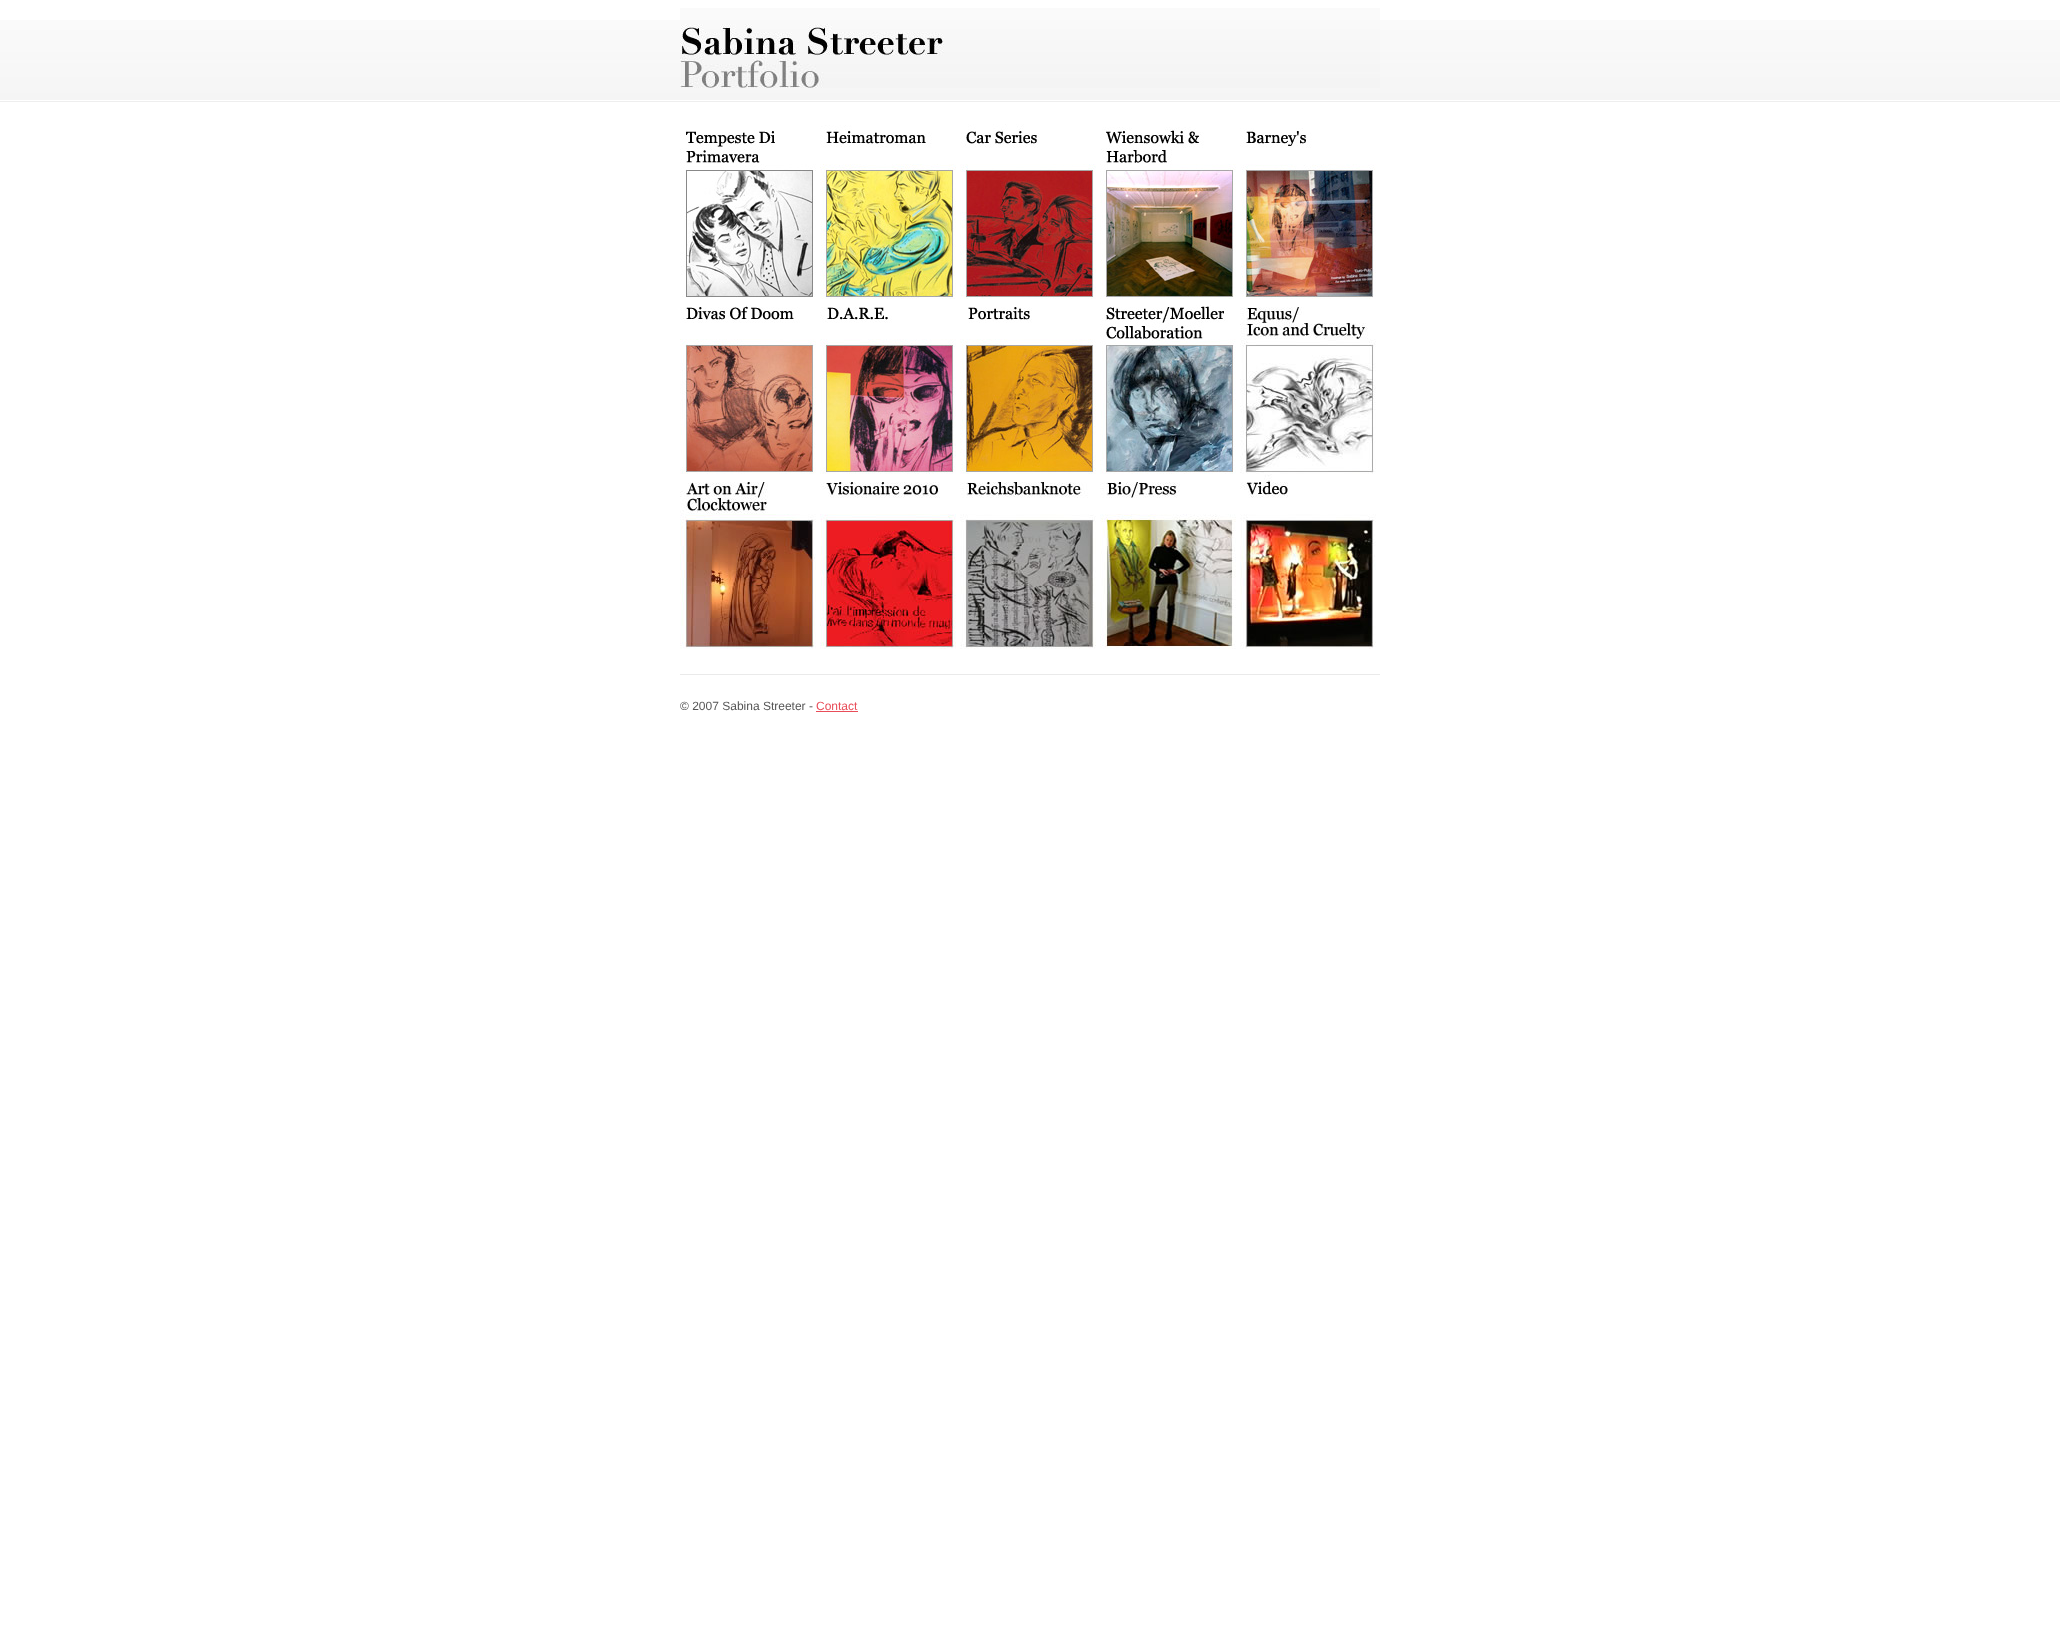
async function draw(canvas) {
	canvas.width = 2060;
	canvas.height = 1650;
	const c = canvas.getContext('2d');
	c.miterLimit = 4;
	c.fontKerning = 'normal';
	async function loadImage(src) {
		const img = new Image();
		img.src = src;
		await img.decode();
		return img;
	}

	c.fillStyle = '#fff';
	c.fillRect(0, 0, 2060, 1650);
	c.drawImage(await loadImage('img1.png'), 0, 20, 2060, 82);
	c.drawImage(await loadImage('img2.png'), 680, 8, 700, 80);
	c.drawImage(await loadImage('img3.png'), 680, 130, 136, 168);
	c.drawImage(await loadImage('img4.png'), 820, 125, 136, 174);
	c.drawImage(await loadImage('img5.png'), 960, 124, 136, 175);
	c.drawImage(await loadImage('img6.png'), 1100, 127, 136, 172);
	c.drawImage(await loadImage('img7.png'), 1240, 128, 136, 171);
	c.drawImage(await loadImage('img8.png'), 680, 305, 136, 169);
	c.drawImage(await loadImage('img9.png'), 820, 307, 136, 167);
	c.drawImage(await loadImage('img10.png'), 960, 307, 136, 167);
	c.drawImage(await loadImage('img11.png'), 1100, 305, 136, 169);
	c.drawImage(await loadImage('img12.png'), 1240, 307, 136, 167);
	c.drawImage(await loadImage('img13.png'), 680, 482, 136, 167);
	c.drawImage(await loadImage('img14.png'), 820, 482, 136, 167);
	c.drawImage(await loadImage('img15.png'), 960, 482, 136, 167);
	c.drawImage(await loadImage('img16.png'), 1100, 482, 136, 167);
	c.drawImage(await loadImage('img17.png'), 1240, 474, 136, 175);
	c.fillStyle = '#eaeaea';
	c.fillRect(680, 674, 700, 1);
	c.font = '12px Liberation Sans';
	c.fillStyle = '#555';
	c.fillText('© 2007 Sabina Streeter -', 680, 710);
	c.fillStyle = '#e94d59';
	c.fillText('Contact', 816, 710);
	c.fillRect(816, 711, 42, 1);
}

draw(document.querySelector('canvas'));
